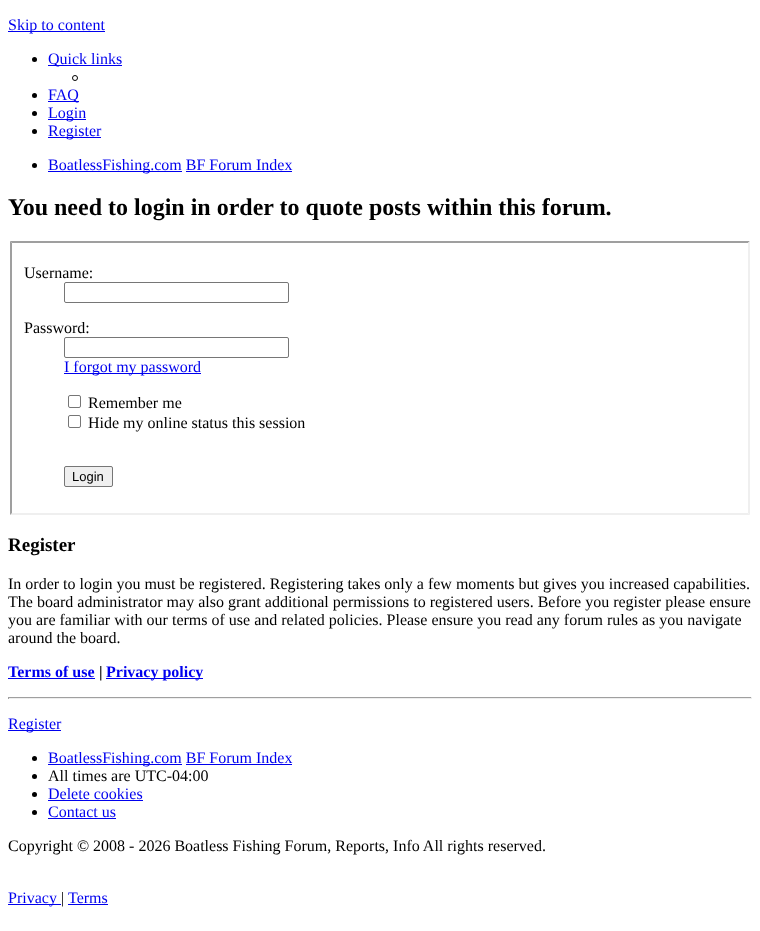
async function draw(canvas) {
	canvas.width = 760;
	canvas.height = 931;
	const c = canvas.getContext('2d');
	c.miterLimit = 4;
	c.fontKerning = 'normal';

	c.fillStyle = '#fff';
	c.fillRect(0, 0, 760, 931);
	c.fillStyle = '#00e';
	c.fillRect(8, 31, 97, 1);
	c.font = '16px Liberation Serif';
	c.fillText('Skip to content', 8, 30);
	c.fillStyle = '#000';
	c.beginPath();
	c.arc(34.5, 59.5, 2.5, 0, 2 * Math.PI);
	c.fill();
	c.fillStyle = '#00e';
	c.fillRect(48, 65, 74, 1);
	c.fillText('Quick links', 48, 64);
	c.beginPath();
	c.arc(75, 78, 2.5, 0, 2 * Math.PI);
	c.strokeStyle = '#000';
	c.stroke();
	c.fillStyle = '#000';
	c.beginPath();
	c.arc(34.5, 95.5, 2.5, 0, 2 * Math.PI);
	c.fill();
	c.fillStyle = '#00e';
	c.fillRect(48, 101, 31, 1);
	c.fillText('FAQ', 48, 100);
	c.fillStyle = '#000';
	c.beginPath();
	c.arc(34.5, 113.5, 2.5, 0, 2 * Math.PI);
	c.fill();
	c.fillStyle = '#00e';
	c.fillRect(48, 119, 38, 1);
	c.fillText('Login', 48, 118);
	c.fillStyle = '#000';
	c.beginPath();
	c.arc(34.5, 131.5, 2.5, 0, 2 * Math.PI);
	c.fill();
	c.fillStyle = '#00e';
	c.fillRect(48, 137, 53, 1);
	c.fillText('Register', 48, 136);
	c.fillStyle = '#000';
	c.beginPath();
	c.arc(34.5, 165.5, 2.5, 0, 2 * Math.PI);
	c.fill();
	c.fillStyle = '#00e';
	c.fillRect(48, 171, 134, 1);
	c.fillText('BoatlessFishing.com BF Forum Index', 48, 170);
	c.fillRect(186, 171, 106, 1);
	c.font = 'bold 24px Liberation Serif';
	c.fillStyle = '#000';
	c.fillText('You need to login in order to quote posts within this forum.', 8, 215);
	c.fillStyle = '#9f9f9f';
	c.beginPath();
	c.moveTo(10, 241);
	c.lineTo(750, 241);
	c.lineTo(748, 243);
	c.lineTo(12, 243);
	c.closePath();
	c.fill();
	c.fillStyle = '#efefef';
	c.beginPath();
	c.moveTo(750, 241);
	c.lineTo(750, 515);
	c.lineTo(748, 513);
	c.lineTo(748, 243);
	c.closePath();
	c.fill();
	c.beginPath();
	c.moveTo(750, 515);
	c.lineTo(10, 515);
	c.lineTo(12, 513);
	c.lineTo(748, 513);
	c.closePath();
	c.fill();
	c.fillStyle = '#9f9f9f';
	c.beginPath();
	c.moveTo(10, 515);
	c.lineTo(10, 241);
	c.lineTo(12, 243);
	c.lineTo(12, 513);
	c.closePath();
	c.fill();
	c.font = '16px Liberation Serif';
	c.fillStyle = '#000';
	c.fillText('Username:', 24, 278);
	c.beginPath();
	c.roundRect(64.5, 282.5, 224, 20, 1.5);
	c.strokeStyle = '#767676';
	c.stroke();
	c.fillText('Password:', 24, 333);
	c.beginPath();
	c.roundRect(64.5, 337.5, 224, 20, 1.5);
	c.stroke();
	c.fillStyle = '#00e';
	c.fillRect(64, 373, 137, 1);
	c.fillText('I forgot my password', 64, 372);
	c.beginPath();
	c.roundRect(68.5, 395.5, 12, 12, 1.5);
	c.stroke();
	c.fillStyle = '#000';
	c.fillText('Remember me', 88, 408);
	c.beginPath();
	c.roundRect(68.5, 415.5, 12, 12, 1.5);
	c.stroke();
	c.fillText('Hide my online status this session', 88, 428);
	c.fillStyle = '#efefef';
	c.beginPath();
	c.roundRect(64.5, 466.5, 48, 20, 1.5);
	c.fill();
	c.stroke();
	c.font = '13px Liberation Sans';
	c.fillStyle = '#000';
	c.fillText('Login', 72, 481);
	c.font = 'bold 19px Liberation Serif';
	c.fillText('Register', 8, 551);
	c.font = '16px Liberation Serif';
	for (const [text, x, y] of [
		['In order to login you must be registered. Registering takes only a few moments but gives you increased capabilities.', 8, 589],
		['The board administrator may also grant additional permissions to registered users. Before you register please ensure', 8, 607],
		['you are familiar with our terms of use and related policies. Please ensure you read any forum rules as you navigate', 8, 625],
		['around the board.', 8, 643],
	]) {
		c.fillText(text, x, y);
	}
	c.font = 'bold 16px Liberation Serif';
	c.fillStyle = '#00e';
	c.fillText('Terms of use', 8, 677);
	c.fillRect(8, 678, 87, 1);
	c.fillStyle = '#000';
	c.fillText('|', 99, 677);
	c.fillStyle = '#00e';
	c.fillRect(106, 678, 97, 1);
	c.fillText('Privacy policy', 106, 677);
	for (const [x, y, w, h, color] of [
		[8, 697, 744, 1, '#9f9f9f'],
		[751, 697, 1, 2, '#eee'],
		[8, 698, 744, 1, '#eee'],
		[8, 697, 1, 2, '#9f9f9f'],
		[8, 730, 53, 1, '#00e'],
	]) {
		c.fillStyle = color;
		c.fillRect(x, y, w, h);
	}
	c.font = '16px Liberation Serif';
	c.fillText('Register', 8, 729);
	c.fillStyle = '#000';
	c.beginPath();
	c.arc(34.5, 758.5, 2.5, 0, 2 * Math.PI);
	c.fill();
	c.fillStyle = '#00e';
	c.fillRect(48, 764, 134, 1);
	c.fillText('BoatlessFishing.com BF Forum Index', 48, 763);
	c.fillRect(186, 764, 106, 1);
	c.fillStyle = '#000';
	c.beginPath();
	c.arc(34.5, 776.5, 2.5, 0, 2 * Math.PI);
	c.fill();
	c.fillText('All times are UTC-04:00', 48, 781);
	c.beginPath();
	c.arc(34.5, 794.5, 2.5, 0, 2 * Math.PI);
	c.fill();
	c.fillStyle = '#00e';
	c.fillText('Delete cookies', 48, 799);
	c.fillRect(48, 800, 95, 1);
	c.fillStyle = '#000';
	c.beginPath();
	c.arc(34.5, 812.5, 2.5, 0, 2 * Math.PI);
	c.fill();
	c.fillStyle = '#00e';
	c.fillText('Contact us', 48, 817);
	c.fillRect(48, 818, 68, 1);
	c.fillStyle = '#000';
	c.fillText('Copyright © 2008 - 2026 Boatless Fishing Forum, Reports, Info All rights reserved.', 8, 851);
	c.fillStyle = '#00e';
	c.fillRect(8, 904, 53, 1);
	c.fillText('Privacy', 8, 903);
	c.fillStyle = '#000';
	c.fillText('|', 61, 903);
	c.fillStyle = '#00e';
	c.fillText('Terms', 68, 903);
	c.fillRect(68, 904, 40, 1);
}

draw(document.querySelector('canvas'));
